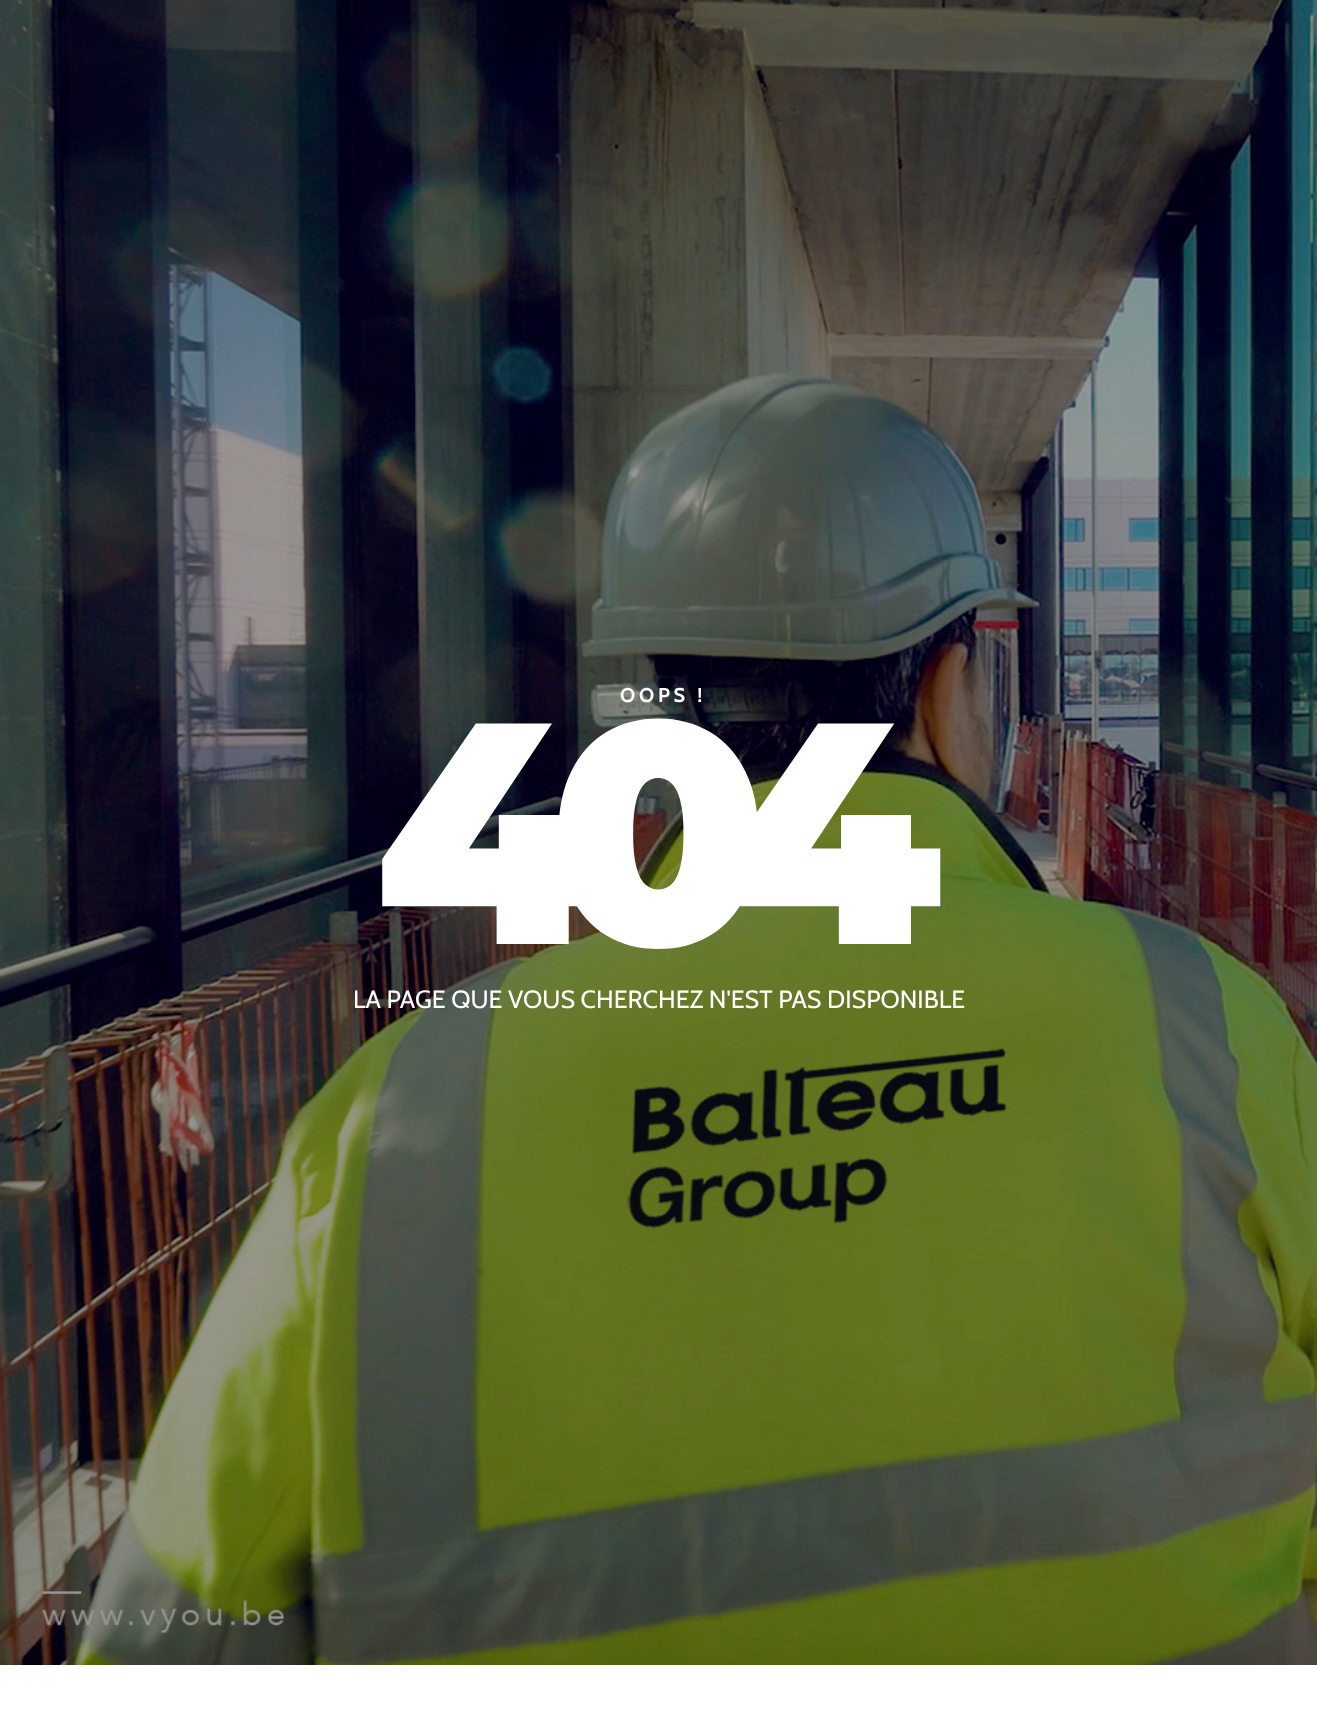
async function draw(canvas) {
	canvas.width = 1317;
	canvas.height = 1729;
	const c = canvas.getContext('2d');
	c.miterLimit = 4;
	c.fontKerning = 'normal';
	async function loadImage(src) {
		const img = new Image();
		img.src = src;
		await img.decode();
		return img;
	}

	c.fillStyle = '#fff';
	c.fillRect(0, 0, 1317, 1729);
	c.drawImage(await loadImage('img1.png'), 0, 0, 1317, 1665);
	c.letterSpacing = '3.75px';
	c.font = 'bold 20px Cabin';
	c.fillText('OOPS !', 620, 702);
	c.letterSpacing = '-50px';
	c.font = '100 315px Montserrat';
	c.fillText('404', 375, 944);
	c.letterSpacing = '0px';
	c.font = '25px Cabin';
	c.fillText('LA PAGE QUE VOUS CHERCHEZ N\'EST PAS DISPONIBLE', 353, 1008);
}

draw(document.querySelector('canvas'));
